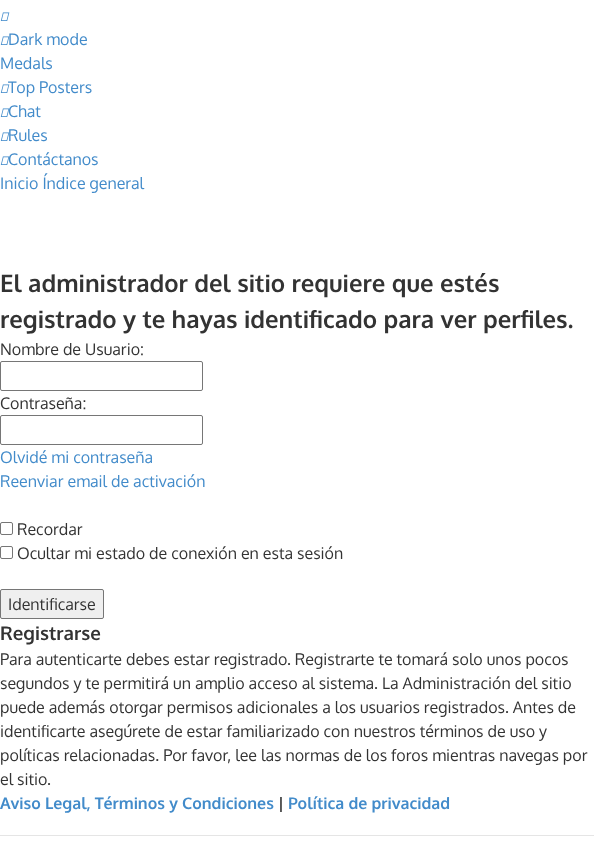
async function draw(canvas) {
	canvas.width = 594;
	canvas.height = 846;
	const c = canvas.getContext('2d');
	c.miterLimit = 4;
	c.fontKerning = 'normal';
	async function loadImage(src) {
		const img = new Image();
		img.src = src;
		await img.decode();
		return img;
	}

	c.fillStyle = '#fff';
	c.fillRect(0, 0, 594, 846);
	c.drawImage(await loadImage('img1.png'), 0, 12, 10, 9);
	c.drawImage(await loadImage('img1.png'), 0, 36, 10, 9);
	c.font = '16px Oxygen';
	c.fillStyle = '#428bca';
	c.fillText('Dark mode', 8, 45);
	c.fillText('Medals', 0, 69);
	c.drawImage(await loadImage('img1.png'), 0, 84, 10, 9);
	c.fillText('Top Posters', 8, 93);
	c.drawImage(await loadImage('img1.png'), 0, 108, 10, 9);
	c.fillText('Chat', 8, 117);
	c.drawImage(await loadImage('img1.png'), 0, 132, 10, 9);
	c.fillText('Rules', 8, 141);
	c.drawImage(await loadImage('img1.png'), 0, 156, 10, 9);
	c.fillText('Contáctanos', 8, 165);
	c.fillText('Inicio Índice general', 0, 189);
	c.font = 'bold 24px Oxygen';
	c.fillStyle = '#333';
	c.fillText('El administrador del sitio requiere que estés', 0, 292);
	c.fillText('registrado y te hayas identificado para ver perfiles.', 0, 328);
	c.font = '16px Oxygen';
	c.fillText('Nombre de Usuario:', 0, 355);
	c.beginPath();
	c.roundRect(0.5, 361.5, 202, 29, 1.5);
	c.strokeStyle = '#767676';
	c.stroke();
	c.fillText('Contraseña:', 0, 409);
	c.beginPath();
	c.roundRect(0.5, 415.5, 202, 29, 1.5);
	c.stroke();
	c.fillStyle = '#428bca';
	c.fillText('Olvidé mi contraseña', 0, 463);
	c.fillText('Reenviar email de activación', 0, 487);
	c.beginPath();
	c.roundRect(0.5, 522.5, 12, 12, 1.5);
	c.stroke();
	c.fillStyle = '#333';
	c.fillText('Recordar', 17, 535);
	c.beginPath();
	c.roundRect(0.5, 546.5, 12, 12, 1.5);
	c.stroke();
	c.fillText('Ocultar mi estado de conexión en esta sesión', 17, 559);
	c.fillStyle = '#efefef';
	c.beginPath();
	c.roundRect(0.5, 589.5, 103, 29, 1.5);
	c.fill();
	c.stroke();
	c.fillStyle = '#333';
	c.fillText('Identificarse', 8, 610);
	c.font = 'bold 18.75px Oxygen';
	c.fillText('Registrarse', 0, 640);
	c.font = '16px Oxygen';
	for (const [text, x, y] of [
		['Para autenticarte debes estar registrado. Registrarte te tomará solo unos pocos', 0, 665],
		['segundos y te permitirá un amplio acceso al sistema. La Administración del sitio', 0, 689],
		['puede además otorgar permisos adicionales a los usuarios registrados. Antes de', 0, 713],
		['identificarte asegúrete de estar familiarizado con nuestros términos de uso y', 0, 737],
		['políticas relacionadas. Por favor, lee las normas de los foros mientras navegas por', 0, 761],
		['el sitio.', 0, 785],
	]) {
		c.fillText(text, x, y);
	}
	c.font = 'bold 16px Oxygen';
	c.fillStyle = '#428bca';
	c.fillText('Aviso Legal, Términos y Condiciones', 0, 809);
	c.fillStyle = '#333';
	c.fillText('|', 278, 809);
	c.fillStyle = '#428bca';
	c.fillText('Política de privacidad', 288, 809);
	c.fillStyle = '#e5e5e5';
	c.fillRect(0, 835, 594, 1);
}

draw(document.querySelector('canvas'));
